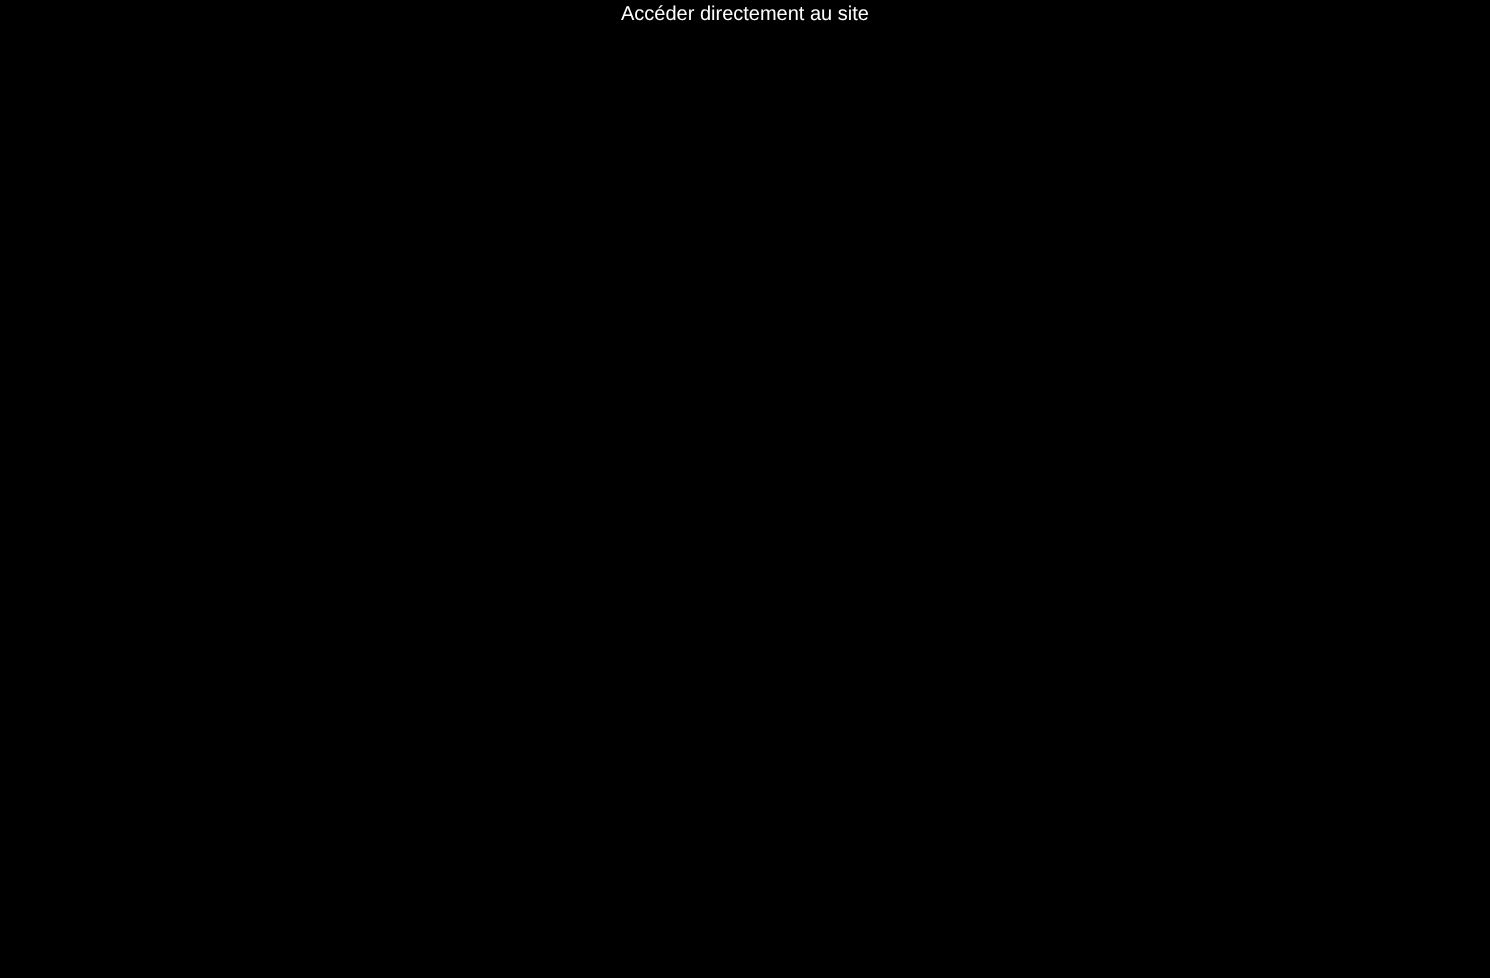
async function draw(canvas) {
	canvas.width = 1490;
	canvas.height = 978;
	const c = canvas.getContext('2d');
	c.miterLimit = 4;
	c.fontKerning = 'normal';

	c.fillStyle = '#000';
	c.fillRect(0, 0, 1490, 978);
	c.font = '20px Liberation Sans';
	c.fillStyle = '#fff';
	c.fillText('Accéder directement au site', 621, 20);
}

draw(document.querySelector('canvas'));
